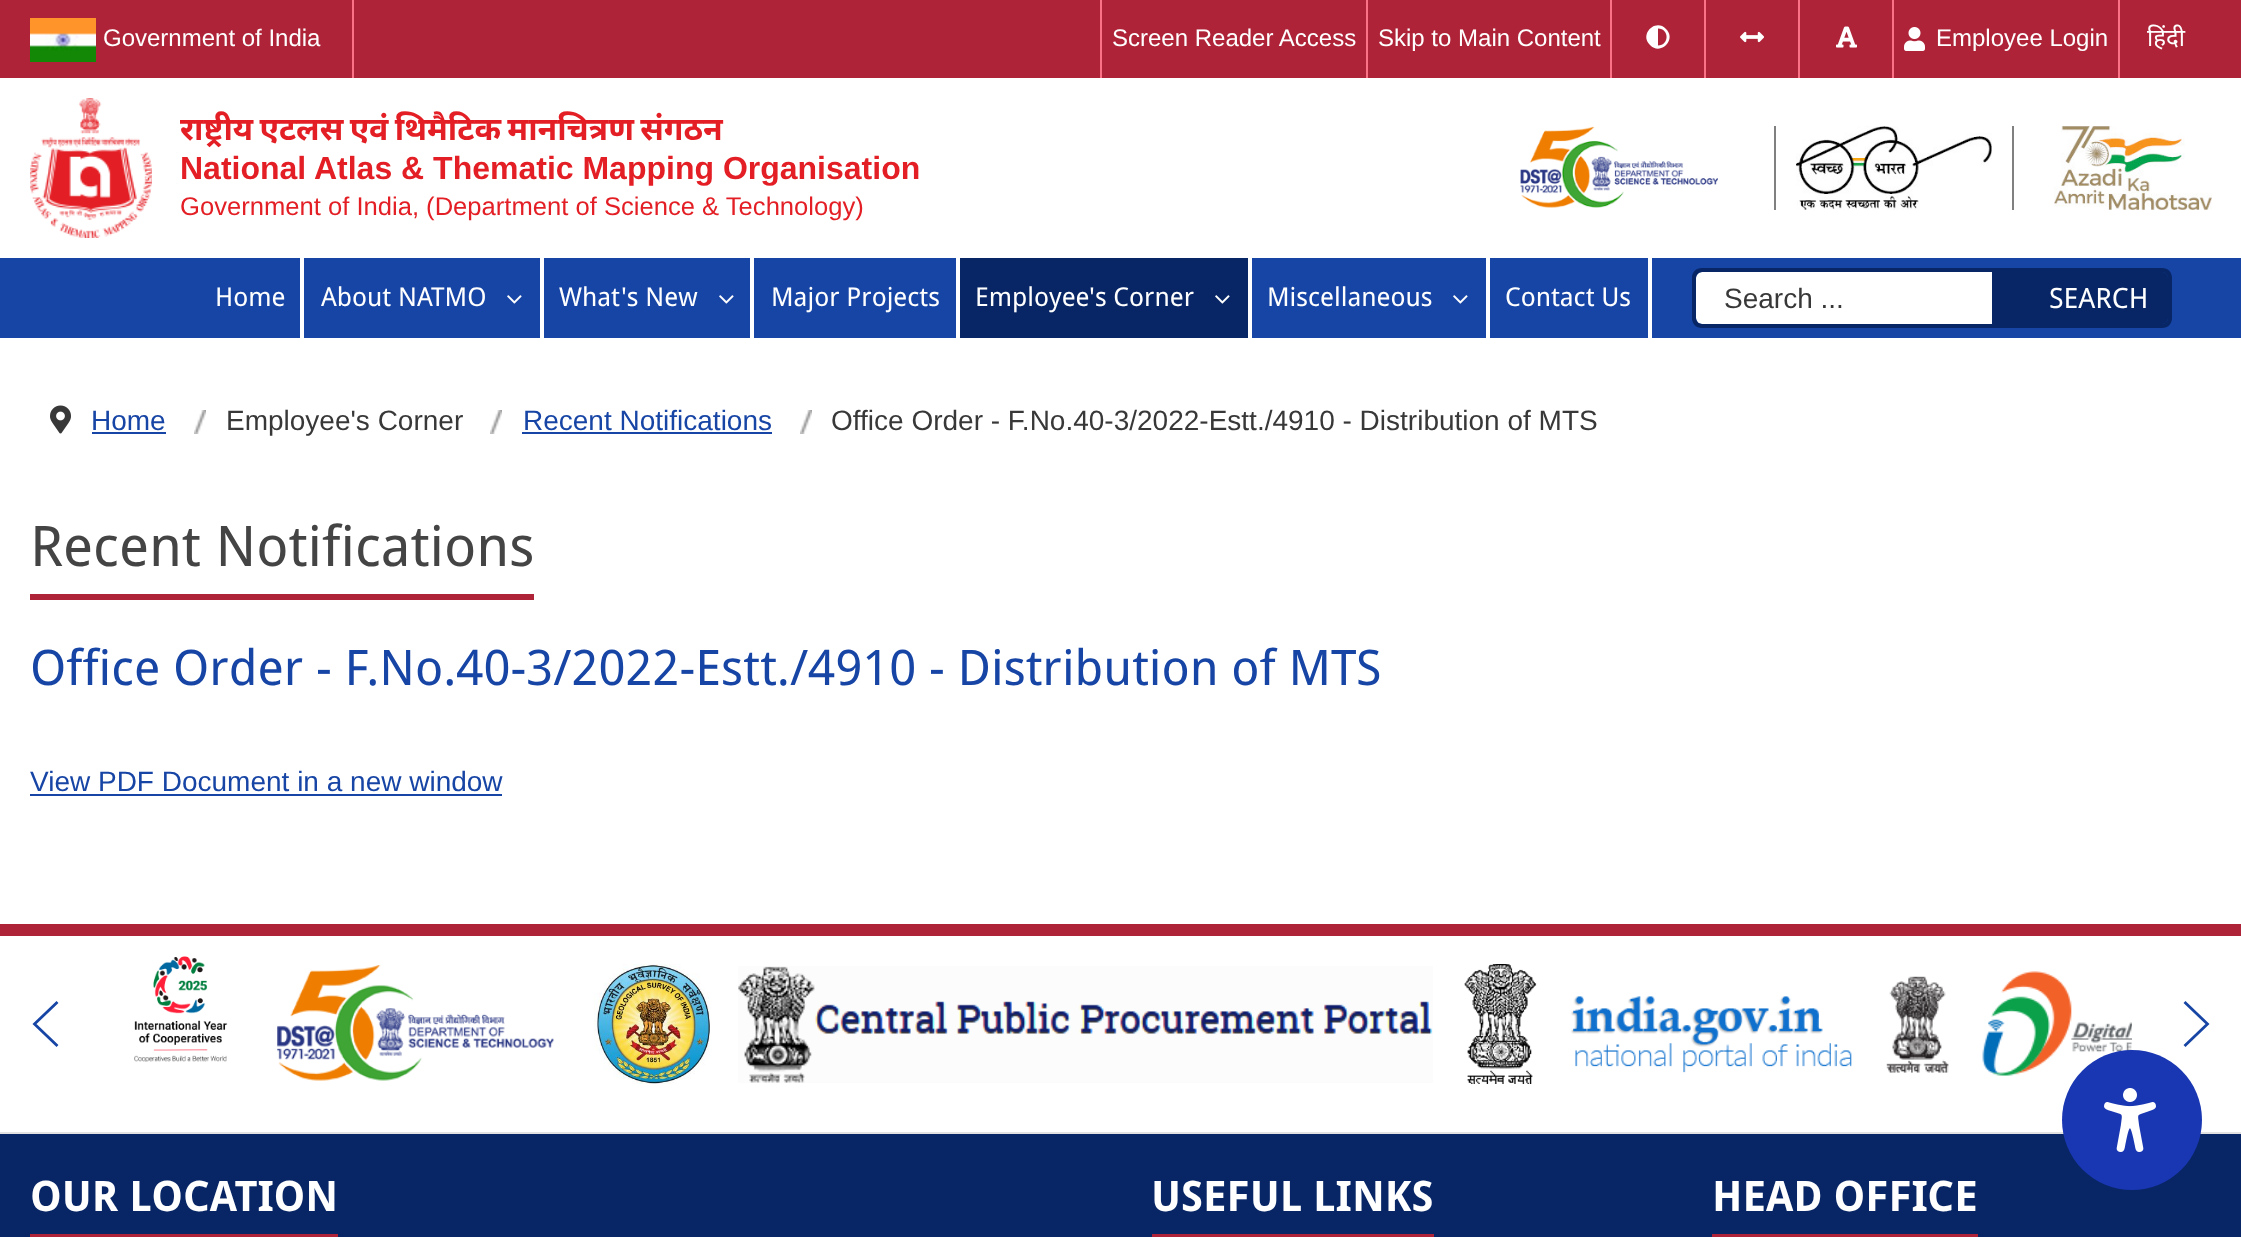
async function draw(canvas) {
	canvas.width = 2241;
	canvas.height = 1237;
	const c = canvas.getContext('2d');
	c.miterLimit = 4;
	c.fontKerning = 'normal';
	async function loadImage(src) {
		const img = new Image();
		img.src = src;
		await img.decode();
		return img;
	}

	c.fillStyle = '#fff';
	c.fillRect(0, 0, 2241, 1237);
	c.fillStyle = '#ae2338';
	c.fillRect(0, 0, 2241, 78);
	c.fillStyle = '#f97286';
	c.fillRect(352, 0, 2, 78);
	c.drawImage(await loadImage('img1.png'), 30, 18, 66, 44);
	c.font = '24px Liberation Sans';
	c.fillStyle = '#fff';
	c.fillText('Government of India', 103, 46);
	c.fillStyle = '#f97286';
	c.fillRect(1100, 0, 2, 78);
	c.fillStyle = '#fff';
	c.fillText('Screen Reader Access', 1112, 46);
	c.fillStyle = '#f97286';
	c.fillRect(1366, 0, 2, 78);
	c.fillStyle = '#fff';
	c.fillText('Skip to Main Content', 1378, 46);
	c.fillStyle = '#f97286';
	c.fillRect(1610, 0, 2, 78);
	c.fillStyle = '#fff';
	c.beginPath();
	c.moveTo(1650, 45);
	c.bezierCurveTo(1639, 34.5, 1655.5, 18, 1666, 29);
	c.bezierCurveTo(1677, 39.5, 1660.5, 56, 1650, 45);
	c.closePath();
	c.moveTo(1658, 45.5);
	c.bezierCurveTo(1669.5, 45.5, 1669.5, 28.5, 1658, 28.5);
	c.closePath();
	c.fill();
	c.fillStyle = '#f97286';
	c.fillRect(1704, 0, 2, 78);
	c.drawImage(await loadImage('img2.png'), 1740, 31, 24, 12);
	c.fillRect(1798, 0, 2, 78);
	c.drawImage(await loadImage('img3.png'), 1836, 26, 21, 22);
	c.fillRect(1892, 0, 2, 78);
	c.drawImage(await loadImage('img4.png'), 1904, 27, 21, 24);
	c.fillStyle = '#fff';
	c.fillText('Employee Login', 1936, 46);
	c.fillStyle = '#f97286';
	c.fillRect(2118, 0, 2, 78);
	c.font = '24px Noto Sans';
	c.fillStyle = '#fff';
	c.fillText('हिंदी', 2147, 46);
	c.drawImage(await loadImage('img5.png'), 30, 98, 122, 140);
	c.wordSpacing = '-2px';
	c.font = 'bold 32px Noto Sans';
	c.fillStyle = '#e31f25';
	c.fillText('राष्ट्रीय एटलस एवं थिमैटिक मानचित्रण संगठन', 180, 140);
	c.wordSpacing = '0px';
	c.font = 'bold 32px Liberation Sans';
	c.fillText('National Atlas & Thematic Mapping Organisation', 180, 179);
	c.font = '25.6px Liberation Sans';
	c.fillText('Government of India, (Department of Science & Technology)', 180, 215);
	c.drawImage(await loadImage('img6.png'), 1520, 126, 198, 82);
	c.fillStyle = '#808080';
	c.fillRect(1774, 126, 2, 84);
	c.drawImage(await loadImage('img7.png'), 1796, 126, 196, 84);
	c.fillRect(2012, 126, 2, 84);
	c.drawImage(await loadImage('img8.png'), 2054, 126, 158, 84);
	c.fillStyle = '#1745a5';
	c.fillRect(0, 258, 2241, 80);
	c.fillStyle = '#fff';
	c.fillRect(300, 258, 4, 80);
	c.font = '26px Droid Sans';
	c.fillText('Home', 215, 306);
	c.fillRect(540, 258, 4, 80);
	c.fillText('About NATMO', 321, 306);
	c.drawImage(await loadImage('img9.png'), 507, 295, 15, 9);
	c.fillRect(750, 258, 4, 80);
	c.fillText('What\'s New', 559, 306);
	c.drawImage(await loadImage('img9.png'), 719, 295, 15, 9);
	c.fillRect(956, 258, 4, 80);
	c.fillText('Major Projects', 771, 306);
	c.fillRect(1248, 258, 4, 80);
	c.fillStyle = '#082665';
	c.fillRect(960, 258, 288, 80);
	c.fillStyle = '#fff';
	c.fillText('Employee\'s Corner', 975, 306);
	c.drawImage(await loadImage('img10.png'), 1215, 295, 15, 9);
	c.fillRect(1486, 258, 4, 80);
	c.fillText('Miscellaneous', 1267, 306);
	c.drawImage(await loadImage('img9.png'), 1453, 295, 15, 9);
	c.fillRect(1648, 258, 4, 80);
	c.fillText('Contact Us', 1505, 306);
	c.beginPath();
	c.roundRect(1696, 272, 296, 52, [6, 0, 0, 6]);
	c.fill();
	c.fillStyle = '#082665';
	c.beginPath();
	c.moveTo(1702, 268);
	c.lineTo(1992, 268);
	c.lineTo(1992, 328);
	c.lineTo(1702, 328);
	c.bezierCurveTo(1696, 328, 1692, 324, 1692, 318);
	c.lineTo(1692, 278);
	c.bezierCurveTo(1692, 272, 1696, 268, 1702, 268);
	c.closePath();
	c.moveTo(1702, 272);
	c.lineTo(1992, 272);
	c.lineTo(1992, 324);
	c.lineTo(1702, 324);
	c.bezierCurveTo(1699, 324, 1696, 321, 1696, 318);
	c.lineTo(1696, 278);
	c.bezierCurveTo(1696, 275, 1699, 272, 1702, 272);
	c.closePath();
	c.fill('evenodd');
	c.font = '28px Liberation Sans';
	c.fillStyle = '#383838';
	c.fillText('Search ...', 1724, 308);
	c.fillStyle = '#082665';
	c.beginPath();
	c.roundRect(1992, 272, 176, 52, [0, 6, 6, 0]);
	c.fill();
	c.beginPath();
	c.moveTo(1992, 268);
	c.lineTo(2162, 268);
	c.bezierCurveTo(2168, 268, 2172, 272, 2172, 278);
	c.lineTo(2172, 318);
	c.bezierCurveTo(2172, 324, 2168, 328, 2162, 328);
	c.lineTo(1992, 328);
	c.closePath();
	c.moveTo(1992, 272);
	c.lineTo(2162, 272);
	c.bezierCurveTo(2165, 272, 2168, 275, 2168, 278);
	c.lineTo(2168, 318);
	c.bezierCurveTo(2168, 321, 2165, 324, 2162, 324);
	c.lineTo(1992, 324);
	c.closePath();
	c.fill('evenodd');
	c.font = '28px Droid Sans';
	c.fillStyle = '#fff';
	c.fillText('SEARCH', 2049, 308);
	c.drawImage(await loadImage('img11.png'), 50, 405, 21, 29);
	c.font = '28px Liberation Sans';
	c.fillStyle = '#1745a5';
	c.fillText('Home', 91, 430);
	c.fillRect(92, 432, 74, 2);
	c.drawImage(await loadImage('img12.png'), 194, 410, 12, 24);
	c.fillStyle = '#383838';
	c.fillText('Employee\'s Corner', 226, 430);
	c.drawImage(await loadImage('img12.png'), 490, 410, 12, 24);
	c.fillStyle = '#1745a5';
	c.fillText('Recent Notifications', 523, 430);
	c.fillRect(522, 432, 250, 2);
	c.drawImage(await loadImage('img12.png'), 800, 410, 12, 24);
	c.fillStyle = '#383838';
	c.fillText('Office Order - F.No.40-3/2022-Estt./4910 - Distribution of MTS', 831, 430);
	c.font = '56px Droid Sans';
	c.fillStyle = '#444';
	c.fillText('Recent Notifications', 30, 566);
	c.fillStyle = '#ae2338';
	c.fillRect(30, 594, 504, 6);
	c.font = '49px Droid Sans';
	c.fillStyle = '#1745a5';
	c.fillText('Office Order - F.No.40-3/2022-Estt./4910 - Distribution of MTS', 30, 685);
	c.font = '28px Liberation Sans';
	c.fillText('View PDF Document in a new window', 30, 791);
	c.fillRect(30, 794, 472, 2);
	c.fillStyle = '#ae2338';
	c.fillRect(0, 924, 2241, 12);
	c.beginPath();
	c.moveTo(57.5, 1002);
	c.lineTo(34.5, 1024);
	c.lineTo(57.5, 1046);
	c.strokeStyle = '#1745a5';
	c.lineWidth = 2.8;
	c.stroke();
	c.drawImage(await loadImage('img13.png'), 134, 956, 94, 106);
	c.drawImage(await loadImage('img14.png'), 277, 965, 277, 116);
	c.drawImage(await loadImage('img15.png'), 594, 964, 116, 120);
	c.drawImage(await loadImage('img16.png'), 738, 966, 695, 117);
	c.drawImage(await loadImage('img17.png'), 1464, 964, 388, 120);
	c.drawImage(await loadImage('img18.png'), 1886, 971, 246, 105);
	c.beginPath();
	c.moveTo(2184.5, 1046);
	c.lineTo(2207.5, 1024);
	c.lineTo(2184.5, 1002);
	c.stroke();
	c.fillStyle = '#082665';
	c.fillRect(0, 1134, 2241, 103);
	c.fillStyle = '#e2e2e2';
	c.fillRect(0, 1132, 2241, 2);
	c.font = 'bold 42px Droid Sans';
	c.fillStyle = '#fff';
	c.fillText('OUR LOCATION', 30, 1211);
	c.fillStyle = '#ae2338';
	c.fillRect(30, 1234, 308, 3);
	c.fillStyle = '#fff';
	c.fillText('USEFUL LINKS', 1151, 1211);
	c.fillStyle = '#ae2338';
	c.fillRect(1152, 1234, 282, 3);
	c.fillStyle = '#fff';
	c.fillText('HEAD OFFICE', 1712, 1211);
	c.fillStyle = '#ae2338';
	c.fillRect(1712, 1234, 266, 3);
	c.fillStyle = '#1937b2';
	c.beginPath();
	c.arc(2132, 1120, 70, 0, 2 * Math.PI);
	c.fill();
	c.drawImage(await loadImage('img19.png'), 2104, 1088, 52, 64);
}

draw(document.querySelector('canvas'));
